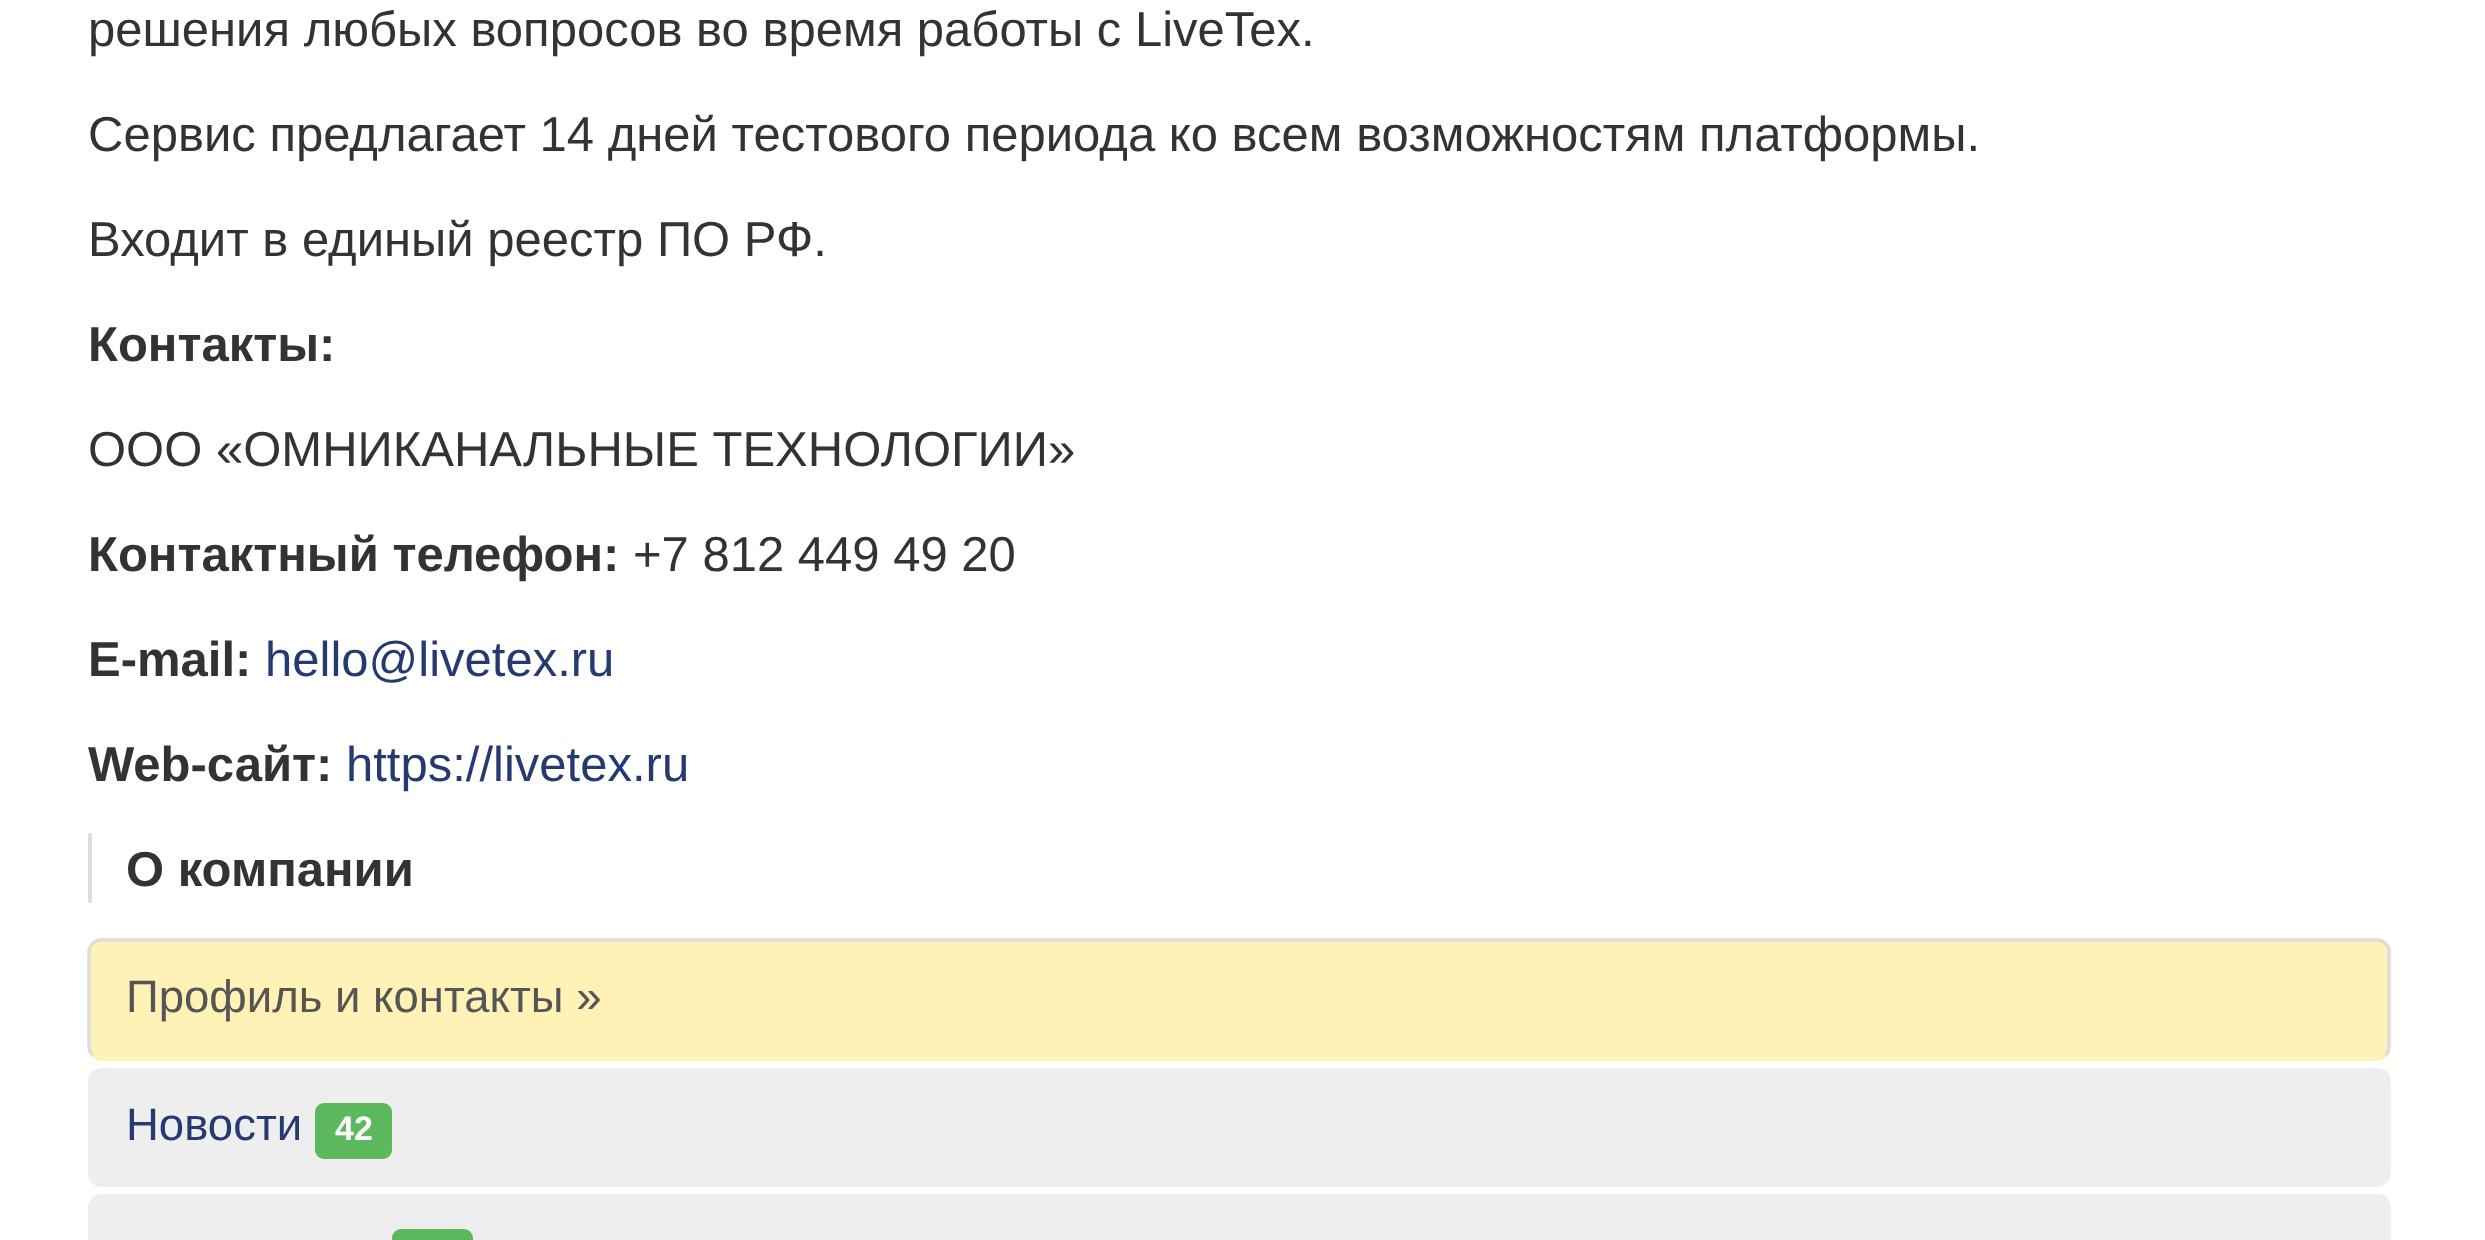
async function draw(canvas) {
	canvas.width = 2485;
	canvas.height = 1240;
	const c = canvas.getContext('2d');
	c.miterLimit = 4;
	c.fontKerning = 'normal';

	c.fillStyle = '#fff';
	c.fillRect(0, 0, 2485, 1240);
	c.font = '49px Liberation Sans';
	c.fillStyle = '#333';
	for (const [text, x, y] of [
		['решения любых вопросов во время работы с LiveTex.', 88, 46],
		['Сервис предлагает 14 дней тестового периода ко всем возможностям платформы.', 88, 151],
		['Входит в единый реестр ПО РФ.', 88, 256],
	]) {
		c.fillText(text, x, y);
	}
	c.font = 'bold 49px Liberation Sans';
	c.fillText('Контакты:', 88, 361);
	c.font = '49px Liberation Sans';
	c.fillText('ООО «ОМНИКАНАЛЬНЫЕ ТЕХНОЛОГИИ»', 88, 466);
	c.font = 'bold 49px Liberation Sans';
	c.fillText('Контактный телефон:', 88, 571);
	c.font = '49px Liberation Sans';
	c.fillText('+7 812 449 49 20', 633, 571);
	c.font = 'bold 49px Liberation Sans';
	c.fillText('E-mail:', 88, 676);
	c.font = '49px Liberation Sans';
	c.fillStyle = '#263a72';
	c.fillText('hello@livetex.ru', 265, 676);
	c.font = 'bold 49px Liberation Sans';
	c.fillStyle = '#333';
	c.fillText('Web-сайт:', 88, 781);
	c.font = '49px Liberation Sans';
	c.fillStyle = '#263a72';
	c.fillText('https://livetex.ru', 346, 781);
	c.fillStyle = '#ddd';
	c.fillRect(88, 833, 4, 70);
	c.font = 'bold 49px Liberation Sans';
	c.fillStyle = '#333';
	c.fillText('О компании', 126, 886);
	c.fillStyle = '#fff2b6';
	c.beginPath();
	c.roundRect(88, 938, 2303, 123, 14);
	c.fill();
	c.beginPath();
	c.moveTo(93, 1055);
	c.bezierCurveTo(90.5, 1053, 89, 1049.5, 89, 1046.5);
	c.lineTo(89, 952);
	c.bezierCurveTo(89, 949, 90.5, 945.5, 93, 943.5);
	c.bezierCurveTo(95, 941, 98.5, 940, 101.5, 940);
	c.lineTo(2376.5, 940);
	c.bezierCurveTo(2379.5, 940, 2383, 941, 2385, 943.5);
	c.bezierCurveTo(2387.5, 945.5, 2389, 949, 2389, 952);
	c.lineTo(2389, 1046.5);
	c.bezierCurveTo(2389, 1049.5, 2387.5, 1053, 2385, 1055);
	c.strokeStyle = '#ddd';
	c.lineWidth = 3.5;
	c.stroke();
	c.font = '45.5px Liberation Sans';
	c.fillStyle = '#555';
	c.fillText('Профиль и контакты »', 126, 1012);
	c.fillStyle = '#eee';
	c.beginPath();
	c.roundRect(88, 1068, 2303, 119, 14);
	c.fill();
	c.fillStyle = '#263a72';
	c.fillText('Новости', 126, 1140);
	c.fillStyle = '#5cb85c';
	c.beginPath();
	c.roundRect(315, 1103, 77, 56, 9);
	c.fill();
	c.font = 'bold 34px Liberation Sans';
	c.fillStyle = '#fff';
	c.fillText('42', 335, 1140);
	c.fillStyle = '#eee';
	c.beginPath();
	c.roundRect(88, 1194, 2303, 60, 14);
	c.fill();
	c.fillStyle = '#5cb85c';
	c.beginPath();
	c.roundRect(392, 1229, 81, 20, 9);
	c.fill();
}

draw(document.querySelector('canvas'));
